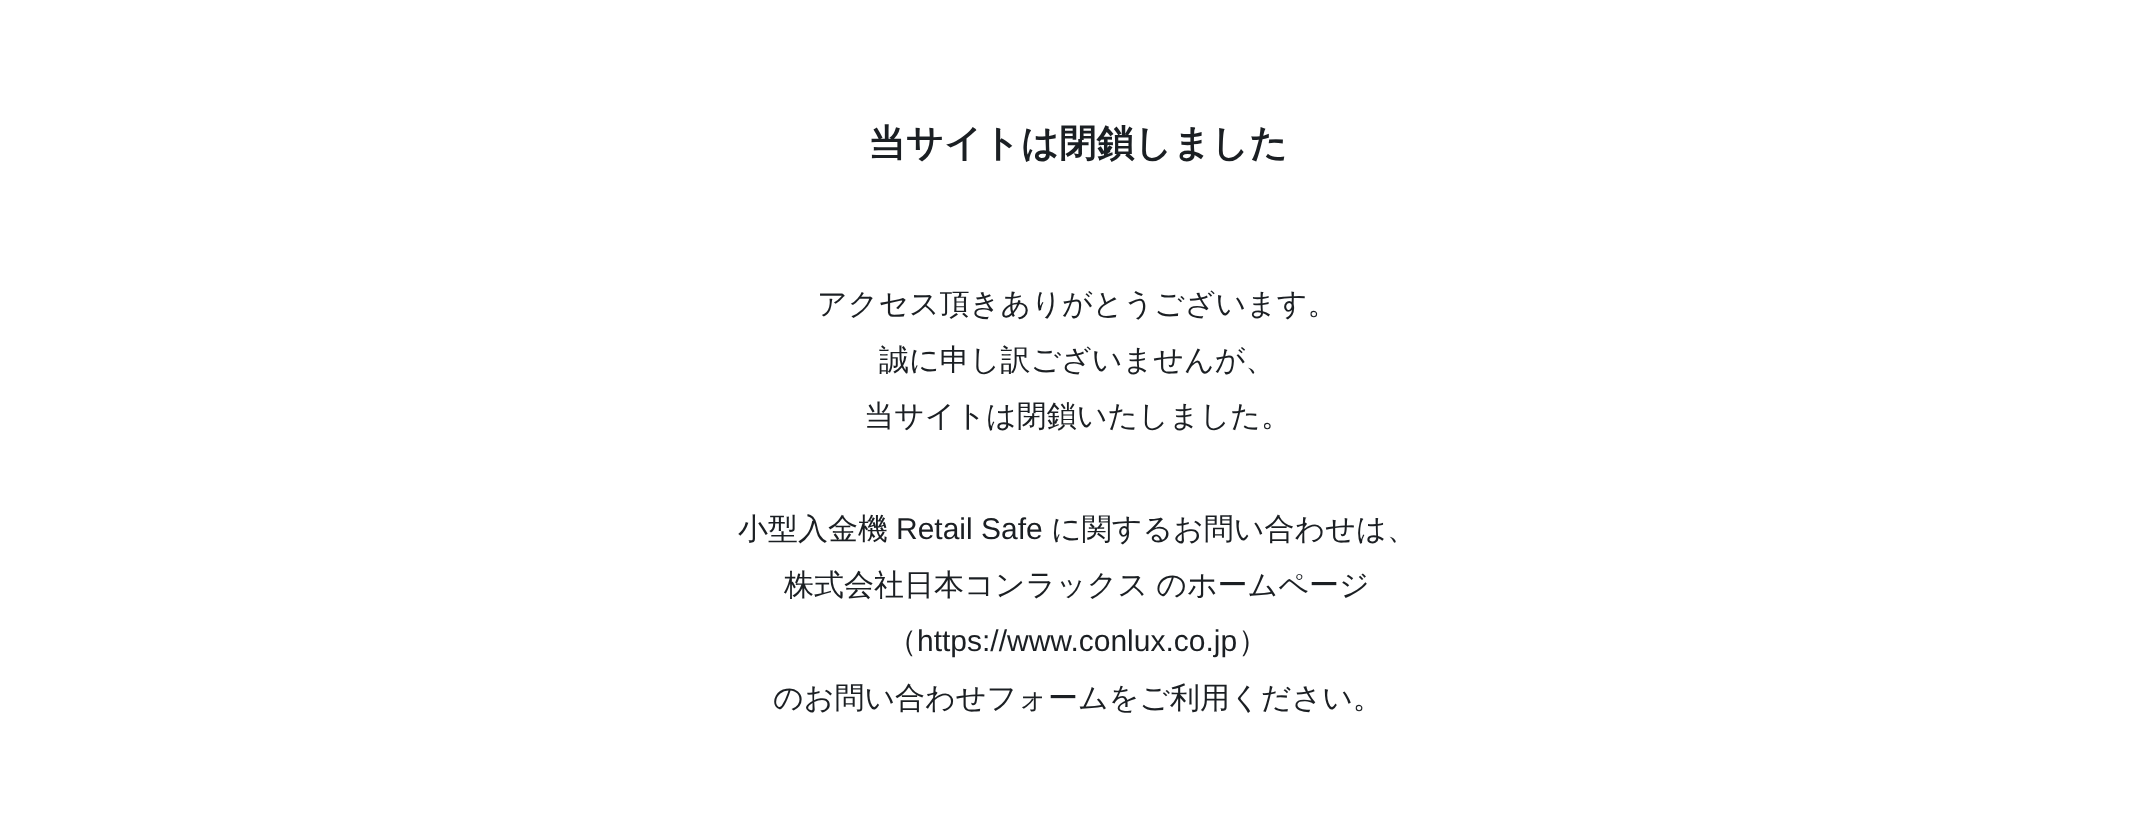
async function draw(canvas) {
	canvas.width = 2155;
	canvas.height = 831;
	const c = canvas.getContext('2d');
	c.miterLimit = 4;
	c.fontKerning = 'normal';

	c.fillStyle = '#fff';
	c.fillRect(0, 0, 2155, 831);
	c.font = 'bold 37.5px WenQuanYi Zen Hei';
	c.fillStyle = '#1b1f23';
	c.fillText('当サイトは閉鎖しました', 868, 156);
	c.font = '500 30px WenQuanYi Zen Hei';
	for (const [text, x, y] of [
		['アクセス頂きありがとうございます。', 817, 314],
		['誠に申し訳ございませんが、', 879, 370],
		['当サイトは閉鎖いたしました。', 864, 426],
		['小型入金機', 738, 539],
	]) {
		c.fillText(text, x, y);
	}
	c.font = '30px Liberation Sans';
	c.fillText('Retail Safe', 896, 539);
	c.font = '500 30px WenQuanYi Zen Hei';
	c.fillText('に関するお問い合わせは、', 1051, 539);
	c.wordSpacing = '-1px';
	c.fillText('株式会社日本コンラックス のホームページ', 784, 595);
	c.wordSpacing = '0px';
	c.fillText('（', 887, 651);
	c.font = '30px Liberation Sans';
	c.fillText('https://www.conlux.co.jp', 917, 651);
	c.font = '500 30px WenQuanYi Zen Hei';
	c.fillText('）', 1238, 651);
	c.fillText('のお問い合わせフォームをご利用ください。', 773, 708);
}

draw(document.querySelector('canvas'));
